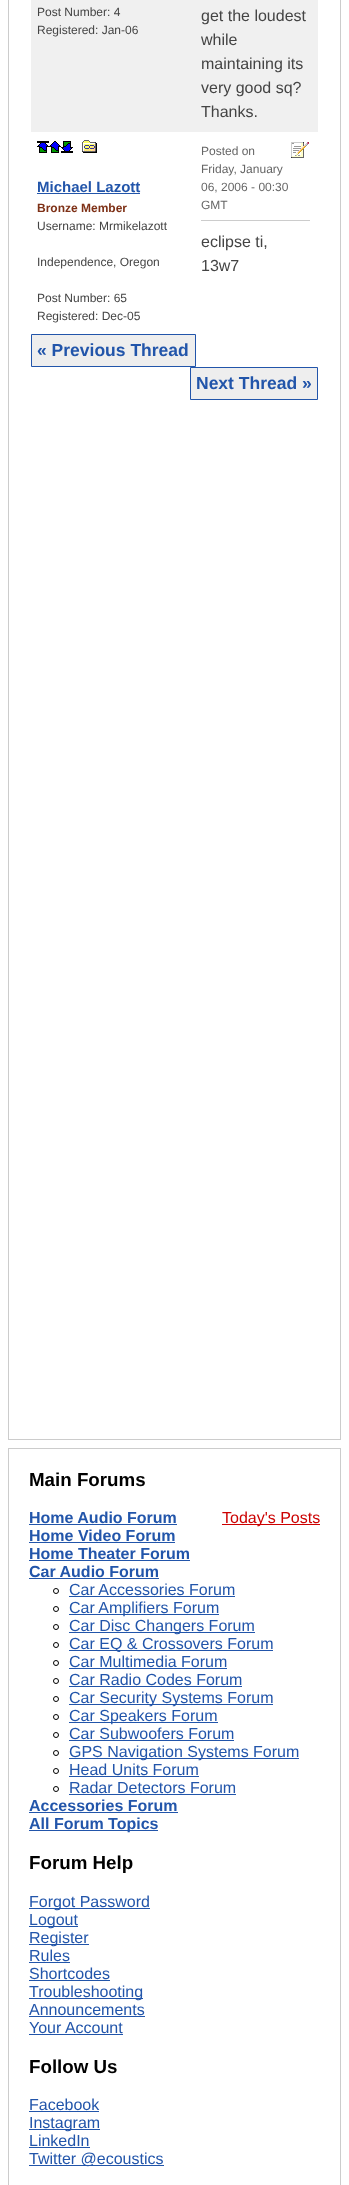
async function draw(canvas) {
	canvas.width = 349;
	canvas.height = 2185;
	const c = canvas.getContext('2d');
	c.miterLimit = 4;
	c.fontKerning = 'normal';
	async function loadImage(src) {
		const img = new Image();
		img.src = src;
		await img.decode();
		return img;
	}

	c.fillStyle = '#fff';
	c.fillRect(0, 0, 349, 2185);
	c.strokeStyle = '#ccc';
	c.strokeRect(8.5, -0.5, 332, 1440);
	c.fillStyle = '#f0f0f0';
	c.fillRect(31, 0, 287, 132);
	c.font = '12px Liberation Sans';
	c.fillStyle = '#444';
	c.fillText('Post Number: 4', 37, 16);
	c.fillText('Registered: Jan-06', 37, 34);
	c.font = '16px Liberation Sans';
	for (const [text, x, y] of [
		['get the loudest', 201, 21],
		['while', 201, 45],
		['maintaining its', 201, 69],
		['very good sq?', 201, 93],
		['Thanks.', 201, 117],
	]) {
		c.fillText(text, x, y);
	}
	c.drawImage(await loadImage('img1.png'), 37, 141, 12, 12);
	c.drawImage(await loadImage('img2.png'), 49, 141, 12, 12);
	c.drawImage(await loadImage('img3.png'), 61, 141, 12, 12);
	c.drawImage(await loadImage('img4.png'), 82, 140, 15, 13);
	c.font = 'bold 15px Liberation Sans';
	c.fillStyle = '#25a';
	c.fillText('Michael Lazott', 37, 192);
	c.fillRect(37, 193, 103, 1);
	c.font = 'bold 12px Liberation Sans';
	c.fillStyle = '#7e3117';
	c.fillText('Bronze Member', 37, 212);
	c.font = '12px Liberation Sans';
	c.fillStyle = '#444';
	for (const [text, x, y] of [
		['Username: Mrmikelazott', 37, 230],
		['Independence, Oregon', 37, 266],
		['Post Number: 65', 37, 302],
		['Registered: Dec-05', 37, 320],
	]) {
		c.fillText(text, x, y);
	}
	c.fillStyle = '#ccc';
	c.fillRect(201, 220, 109, 1);
	c.fillStyle = '#666';
	c.fillText('Posted on', 201, 155);
	c.drawImage(await loadImage('img5.png'), 291, 142, 18, 16);
	for (const [text, x, y] of [
		['Friday, January', 201, 173],
		['06, 2006 - 00:30', 201, 191],
		['GMT', 201, 209],
	]) {
		c.fillText(text, x, y);
	}
	c.font = '16px Liberation Sans';
	c.fillStyle = '#444';
	c.fillText('eclipse ti,', 201, 247);
	c.fillText('13w7', 201, 271);
	c.fillStyle = '#eee';
	c.beginPath();
	c.rect(31.5, 334.5, 164, 32);
	c.fill();
	c.strokeStyle = '#25a';
	c.stroke();
	c.font = 'bold 17.5px Liberation Sans';
	c.fillStyle = '#25a';
	c.fillText('« Previous Thread', 37, 356);
	c.fillStyle = '#eee';
	c.beginPath();
	c.rect(190.5, 367.5, 127, 32);
	c.fill();
	c.stroke();
	c.fillStyle = '#25a';
	c.fillText('Next Thread »', 196, 389);
	c.strokeStyle = '#ccc';
	c.strokeRect(8.5, 1448.5, 332, 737);
	c.font = 'bold 18.75px Liberation Sans';
	c.fillStyle = '#000';
	c.fillText('Main Forums', 29, 1486);
	c.font = 'bold 16px Liberation Sans';
	c.fillStyle = '#25a';
	c.fillText('Home Audio Forum', 29, 1523);
	c.fillRect(29, 1524, 148, 1);
	c.fillText('Home Video Forum', 29, 1541);
	c.fillRect(29, 1542, 146, 1);
	c.fillText('Home Theater Forum', 29, 1559);
	c.fillRect(29, 1560, 161, 1);
	c.fillText('Car Audio Forum', 29, 1577);
	c.fillRect(29, 1578, 130, 1);
	c.beginPath();
	c.arc(56, 1591, 2.5, 0, 2 * Math.PI);
	c.strokeStyle = '#000';
	c.stroke();
	c.font = '16px Liberation Sans';
	c.fillText('Car Accessories Forum', 69, 1595);
	c.fillRect(69, 1596, 166, 1);
	c.beginPath();
	c.arc(56, 1609, 2.5, 0, 2 * Math.PI);
	c.stroke();
	c.fillRect(69, 1614, 150, 1);
	c.fillText('Car Amplifiers Forum', 69, 1613);
	c.beginPath();
	c.arc(56, 1627, 2.5, 0, 2 * Math.PI);
	c.stroke();
	c.fillRect(69, 1632, 186, 1);
	c.fillText('Car Disc Changers Forum', 69, 1631);
	c.beginPath();
	c.arc(56, 1645, 2.5, 0, 2 * Math.PI);
	c.stroke();
	c.fillRect(69, 1650, 204, 1);
	c.fillText('Car EQ & Crossovers Forum', 69, 1649);
	c.beginPath();
	c.arc(56, 1663, 2.5, 0, 2 * Math.PI);
	c.stroke();
	c.fillText('Car Multimedia Forum', 69, 1667);
	c.fillRect(69, 1668, 158, 1);
	c.beginPath();
	c.arc(56, 1681, 2.5, 0, 2 * Math.PI);
	c.stroke();
	c.fillText('Car Radio Codes Forum', 69, 1685);
	c.fillRect(69, 1686, 173, 1);
	c.beginPath();
	c.arc(56, 1699, 2.5, 0, 2 * Math.PI);
	c.stroke();
	c.fillRect(69, 1704, 204, 1);
	c.fillText('Car Security Systems Forum', 69, 1703);
	c.beginPath();
	c.arc(56, 1717, 2.5, 0, 2 * Math.PI);
	c.stroke();
	c.fillRect(69, 1722, 149, 1);
	c.fillText('Car Speakers Forum', 69, 1721);
	c.beginPath();
	c.arc(56, 1735, 2.5, 0, 2 * Math.PI);
	c.stroke();
	c.fillText('Car Subwoofers Forum', 69, 1739);
	c.fillRect(69, 1740, 165, 1);
	c.beginPath();
	c.arc(56, 1753, 2.5, 0, 2 * Math.PI);
	c.stroke();
	c.fillRect(69, 1758, 230, 1);
	c.fillText('GPS Navigation Systems Forum', 69, 1757);
	c.beginPath();
	c.arc(56, 1771, 2.5, 0, 2 * Math.PI);
	c.stroke();
	c.fillText('Head Units Forum', 69, 1775);
	c.fillRect(69, 1776, 130, 1);
	c.beginPath();
	c.arc(56, 1789, 2.5, 0, 2 * Math.PI);
	c.stroke();
	c.fillText('Radar Detectors Forum', 69, 1793);
	c.fillRect(69, 1794, 167, 1);
	c.font = 'bold 16px Liberation Sans';
	c.fillText('Accessories Forum', 29, 1811);
	c.fillRect(29, 1812, 149, 1);
	c.fillRect(29, 1830, 129, 1);
	c.fillText('All Forum Topics', 29, 1829);
	c.fillStyle = '#c00';
	c.fillRect(222, 1524, 98, 1);
	c.font = '16px Liberation Sans';
	c.fillText('Today\'s Posts', 222, 1523);
	c.font = 'bold 18.75px Liberation Sans';
	c.fillStyle = '#000';
	c.fillText('Forum Help', 29, 1869);
	c.fillStyle = '#25a';
	c.fillRect(29, 1908, 121, 1);
	c.font = '16px Liberation Sans';
	c.fillText('Forgot Password', 29, 1907);
	c.fillRect(29, 1926, 49, 1);
	c.fillText('Logout', 29, 1925);
	c.fillRect(29, 1944, 60, 1);
	c.fillText('Register', 29, 1943);
	c.fillText('Rules', 29, 1961);
	c.fillRect(29, 1962, 41, 1);
	c.fillText('Shortcodes', 29, 1979);
	c.fillRect(29, 1980, 81, 1);
	c.fillRect(29, 1998, 114, 1);
	c.fillText('Troubleshooting', 29, 1997);
	c.fillText('Announcements', 29, 2015);
	c.fillRect(29, 2016, 116, 1);
	c.fillText('Your Account', 29, 2033);
	c.fillRect(29, 2034, 94, 1);
	c.font = 'bold 18.75px Liberation Sans';
	c.fillStyle = '#000';
	c.fillText('Follow Us', 29, 2073);
	c.font = '16px Liberation Sans';
	c.fillStyle = '#25a';
	c.fillText('Facebook', 29, 2110);
	c.fillRect(29, 2111, 70, 1);
	c.fillRect(29, 2129, 71, 1);
	c.fillText('Instagram', 29, 2128);
	c.fillText('LinkedIn', 29, 2146);
	c.fillRect(29, 2147, 61, 1);
	c.fillRect(29, 2165, 135, 1);
	c.fillText('Twitter @ecoustics', 29, 2164);
}

draw(document.querySelector('canvas'));
